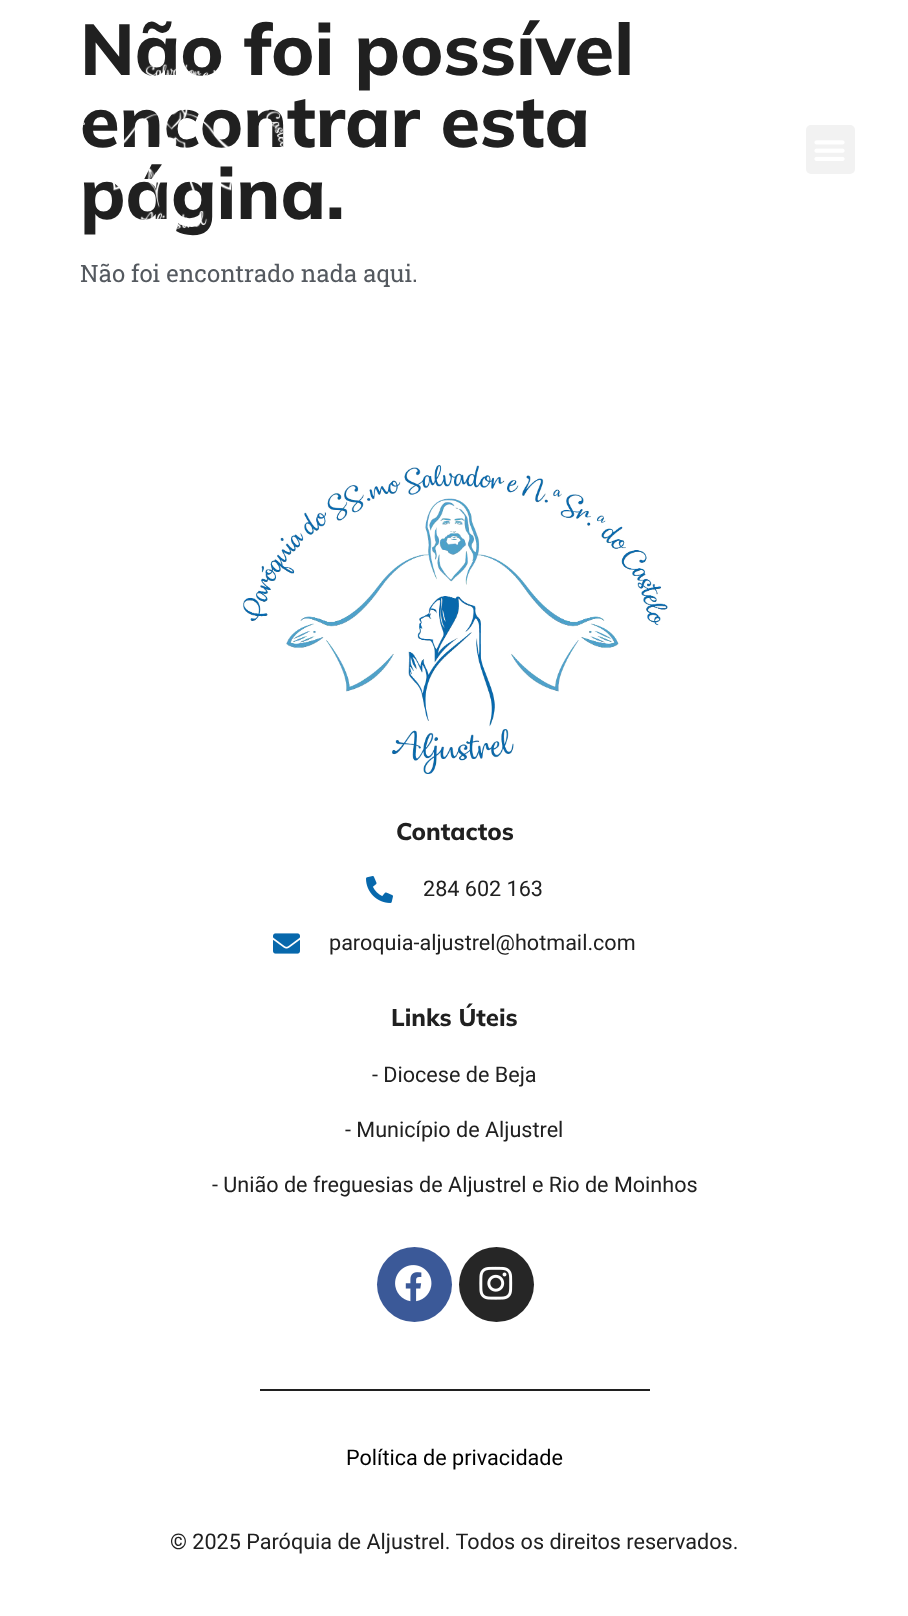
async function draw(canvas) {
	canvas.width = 908;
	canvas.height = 1616;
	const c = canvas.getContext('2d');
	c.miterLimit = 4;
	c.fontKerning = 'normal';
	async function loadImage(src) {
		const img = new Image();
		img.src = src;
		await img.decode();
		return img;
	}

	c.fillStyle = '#fff';
	c.fillRect(0, 0, 908, 1616);
	c.font = '800 72px Mulish';
	c.fillStyle = '#202020';
	for (const [text, x, y] of [
		['Não foi possível', 80, 75],
		['encontrar esta', 80, 147],
		['página.', 80, 219],
	]) {
		c.fillText(text, x, y);
	}
	c.font = '24px Roboto Slab';
	c.fillStyle = '#54595f';
	c.fillText('Não foi encontrado nada aqui.', 80, 282);
	c.drawImage(await loadImage('img1.png'), 82, 63, 201, 167);
	c.fillStyle = '#f2f2f2';
	c.beginPath();
	c.roundRect(806, 125, 49, 49, 5);
	c.fill();
	c.drawImage(await loadImage('img2.png'), 814, 140, 31, 21);
	c.drawImage(await loadImage('img3.png'), 243, 465, 425, 309);
	c.font = '800 24px Mulish';
	c.fillStyle = '#202020';
	c.fillText('Contactos', 396, 840);
	c.drawImage(await loadImage('img4.png'), 366, 876, 27, 27);
	c.font = '21.6px Roboto';
	c.fillText('284 602 163', 423, 896);
	c.drawImage(await loadImage('img5.png'), 273, 933, 27, 21);
	c.fillText('paroquia-aljustrel@hotmail.com', 329, 950);
	c.font = '800 24px Mulish';
	c.fillText('Links Úteis', 391, 1026);
	c.font = '21.6px Roboto';
	for (const [text, x, y] of [
		['- Diocese de Beja', 372, 1082],
		['- Município de Aljustrel', 345, 1137],
		['- União de freguesias de Aljustrel e Rio de Moinhos', 212, 1192],
	]) {
		c.fillText(text, x, y);
	}
	c.fillStyle = '#3b5998';
	c.beginPath();
	c.arc(414.5, 1284.5, 37.5, 0, 2 * Math.PI);
	c.fill();
	c.drawImage(await loadImage('img6.png'), 395, 1265, 37, 37);
	c.fillStyle = '#262626';
	c.beginPath();
	c.arc(496.5, 1284.5, 37.5, 0, 2 * Math.PI);
	c.fill();
	c.drawImage(await loadImage('img7.png'), 479, 1266, 34, 34);
	c.fillStyle = '#202020';
	c.fillRect(260, 1389, 390, 2);
	c.fillStyle = '#000';
	c.fillText('Política de privacidade', 346, 1465);
	c.fillStyle = '#202020';
	c.fillText('© 2025 Paróquia de Aljustrel. Todos os direitos reservados.', 170, 1549);
}

draw(document.querySelector('canvas'));
